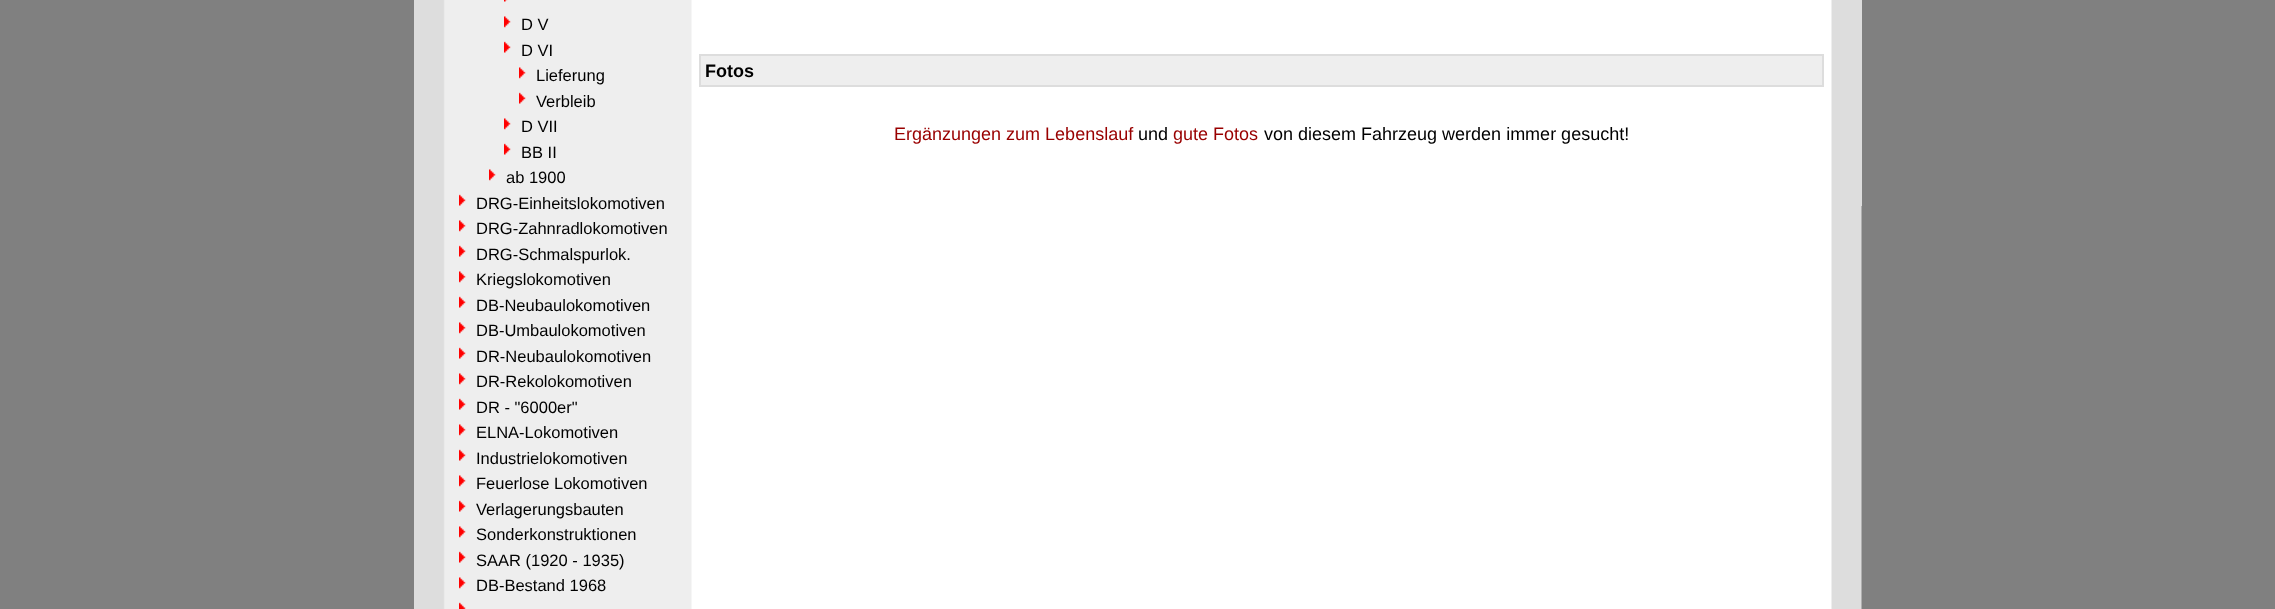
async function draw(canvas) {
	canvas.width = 2275;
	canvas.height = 609;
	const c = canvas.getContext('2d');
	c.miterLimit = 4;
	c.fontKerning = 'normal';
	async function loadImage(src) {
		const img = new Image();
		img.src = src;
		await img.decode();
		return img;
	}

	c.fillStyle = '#808080';
	c.fillRect(0, 0, 2275, 609);
	c.drawImage(await loadImage('img1.png'), 414, 0, 1448, 609);
	c.drawImage(await loadImage('img2.png'), 504, 0, 4, 2);
	c.drawImage(await loadImage('img3.png'), 504, 16, 7, 12);
	c.font = '16.5px Liberation Sans';
	c.fillStyle = '#000';
	c.fillText('D V', 521, 30);
	c.drawImage(await loadImage('img4.png'), 504, 41, 7, 12);
	c.fillText('D VI', 521, 56);
	c.drawImage(await loadImage('img5.png'), 519, 67, 7, 12);
	c.fillText('Lieferung', 536, 81);
	c.drawImage(await loadImage('img6.png'), 519, 92, 7, 12);
	c.fillText('Verbleib', 536, 107);
	c.drawImage(await loadImage('img3.png'), 504, 118, 7, 12);
	c.fillText('D VII', 521, 132);
	c.drawImage(await loadImage('img4.png'), 504, 143, 7, 12);
	c.fillText('BB II', 521, 158);
	c.drawImage(await loadImage('img3.png'), 489, 169, 7, 12);
	c.fillText('ab 1900', 506, 183);
	c.drawImage(await loadImage('img4.png'), 459, 194, 7, 12);
	c.fillText('DRG-Einheitslokomotiven', 476, 209);
	c.drawImage(await loadImage('img3.png'), 459, 220, 7, 12);
	c.fillText('DRG-Zahnradlokomotiven', 476, 234);
	c.drawImage(await loadImage('img4.png'), 459, 245, 7, 12);
	c.fillText('DRG-Schmalspurlok.', 476, 260);
	c.drawImage(await loadImage('img3.png'), 459, 271, 7, 12);
	c.fillText('Kriegslokomotiven', 476, 285);
	c.drawImage(await loadImage('img4.png'), 459, 296, 7, 12);
	c.fillText('DB-Neubaulokomotiven', 476, 311);
	c.drawImage(await loadImage('img3.png'), 459, 322, 7, 12);
	c.fillText('DB-Umbaulokomotiven', 476, 336);
	c.drawImage(await loadImage('img4.png'), 459, 347, 7, 12);
	c.fillText('DR-Neubaulokomotiven', 476, 362);
	c.drawImage(await loadImage('img3.png'), 459, 373, 7, 12);
	c.fillText('DR-Rekolokomotiven', 476, 387);
	c.drawImage(await loadImage('img4.png'), 459, 398, 7, 12);
	c.fillText('DR - "6000er"', 476, 413);
	c.drawImage(await loadImage('img3.png'), 459, 424, 7, 12);
	c.fillText('ELNA-Lokomotiven', 476, 438);
	c.drawImage(await loadImage('img4.png'), 459, 449, 7, 12);
	c.fillText('Industrielokomotiven', 476, 464);
	c.drawImage(await loadImage('img3.png'), 459, 475, 7, 12);
	c.fillText('Feuerlose Lokomotiven', 476, 489);
	c.drawImage(await loadImage('img4.png'), 459, 500, 7, 12);
	c.fillText('Verlagerungsbauten', 476, 515);
	c.drawImage(await loadImage('img3.png'), 459, 526, 7, 12);
	c.fillText('Sonderkonstruktionen', 476, 540);
	c.drawImage(await loadImage('img4.png'), 459, 551, 7, 12);
	c.fillText('SAAR (1920 - 1935)', 476, 566);
	c.drawImage(await loadImage('img3.png'), 459, 577, 7, 12);
	c.fillText('DB-Bestand 1968', 476, 591);
	c.drawImage(await loadImage('img7.png'), 459, 602, 7, 7);
	c.fillStyle = '#eee';
	c.beginPath();
	c.rect(700, 55, 1123, 31);
	c.fill();
	c.strokeStyle = '#ddd';
	c.lineWidth = 2;
	c.stroke();
	c.font = 'bold 18px Liberation Sans';
	c.fillStyle = '#000';
	c.fillText('Fotos', 705, 77);
	c.font = '18px Liberation Sans';
	c.fillStyle = '#900';
	c.fillText('Ergänzungen zum Lebenslauf', 894, 140);
	c.fillStyle = '#000';
	c.fillText('und', 1138, 140);
	c.fillStyle = '#900';
	c.fillText('gute Fotos', 1173, 140);
	c.fillStyle = '#000';
	c.fillText('von diesem Fahrzeug werden immer gesucht!', 1264, 140);
	c.fillStyle = '#ddd';
	c.fillRect(1861, 0, 1, 206);
}

draw(document.querySelector('canvas'));
